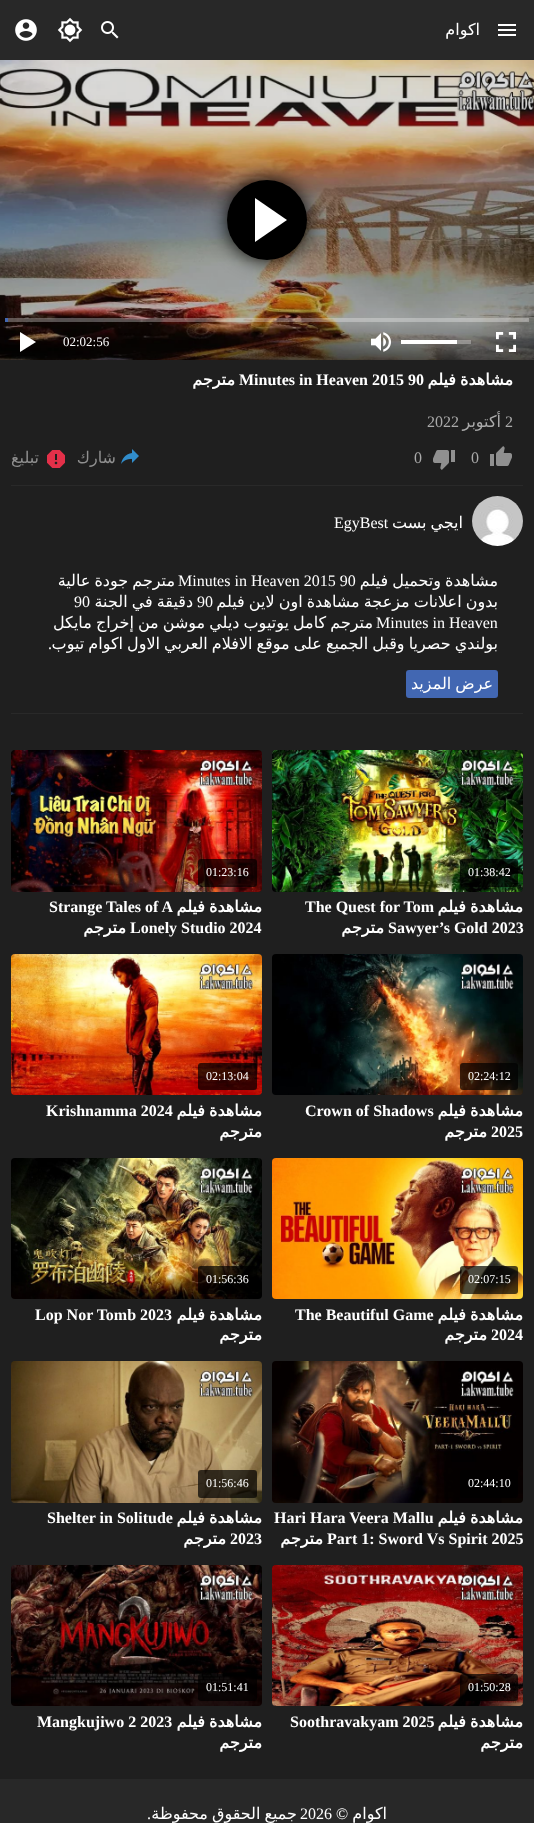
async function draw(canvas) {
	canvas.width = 534;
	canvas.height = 1823;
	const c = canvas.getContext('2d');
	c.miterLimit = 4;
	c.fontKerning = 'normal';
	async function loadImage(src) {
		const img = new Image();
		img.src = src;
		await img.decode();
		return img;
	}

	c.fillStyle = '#1f1f1f';
	c.fillRect(0, 0, 534, 1823);
	c.fillStyle = '#282828';
	c.fillRect(0, 0, 534, 60);
	c.drawImage(await loadImage('img1.png'), 498, 24, 18, 12);
	c.direction = 'rtl';
	c.font = '16px DejaVu Sans';
	c.fillStyle = '#fff';
	c.fillText('اكوام', 480, 35);
	c.drawImage(await loadImage('img2.png'), 101, 21, 18, 18);
	c.drawImage(await loadImage('img3.png'), 57, 17, 26, 26);
	c.drawImage(await loadImage('img4.png'), 15, 19, 22, 22);
	c.drawImage(await loadImage('img5.png'), 0, 60, 534, 300);
	c.fillStyle = '#000';
	c.filter = 'blur(10px)';
	c.beginPath();
	c.roundRect(227, 180, 80, 80, 40);
	c.fill();
	c.filter = 'none';
	c.beginPath();
	c.arc(267, 220, 40, 0, 2 * Math.PI);
	c.fill();
	c.fillStyle = '#fff';
	c.beginPath();
	c.moveTo(255, 242);
	c.lineTo(255, 198);
	c.lineTo(287, 220);
	c.closePath();
	c.fill();
	c.fillStyle = '#ffffff4d';
	c.fillRect(5, 318, 524, 4);
	c.fillStyle = '#4267b2';
	c.fillRect(5, 318, 3, 4);
	c.drawImage(await loadImage('img6.png'), 496, 332, 20, 20);
	c.fillStyle = '#ffffff4d';
	c.fillRect(457, 340, 14, 4);
	c.fillStyle = '#fff';
	c.fillRect(401, 340, 56, 4);
	c.drawImage(await loadImage('img7.png'), 371, 332, 20, 20);
	c.direction = 'ltr';
	c.font = '13px Liberation Serif';
	c.fillText('02:02:56', 63, 346);
	c.beginPath();
	c.moveTo(20, 332);
	c.lineTo(20, 352);
	c.lineTo(36, 342);
	c.closePath();
	c.fill();
	c.wordSpacing = '-1px';
	c.direction = 'rtl';
	c.font = 'bold 16px DejaVu Sans';
	c.fillText('مشاهدة فيلم', 513, 385);
	c.wordSpacing = '0px';
	c.direction = 'ltr';
	c.font = 'bold 16px Liberation Serif';
	c.fillText('Minutes in Heaven 2015 90', 239, 385);
	c.direction = 'rtl';
	c.font = 'bold 16px DejaVu Sans';
	c.fillText('مترجم', 235, 385);
	c.fillStyle = '#292929';
	c.fillRect(11, 485, 512, 1);
	c.direction = 'ltr';
	c.font = '16px Liberation Serif';
	c.fillStyle = '#aaa';
	c.fillText('2', 505, 427);
	c.direction = 'rtl';
	c.font = '16px DejaVu Sans';
	c.fillText('أكتوبر', 501, 427);
	c.direction = 'ltr';
	c.font = '16px Liberation Serif';
	c.fillText('2022', 427, 427);
	c.drawImage(await loadImage('img8.png'), 490, 446, 22, 20);
	c.fillText('0', 471, 463);
	c.drawImage(await loadImage('img9.png'), 433, 450, 22, 20);
	c.fillText('0', 414, 463);
	c.drawImage(await loadImage('img10.png'), 121, 449, 18, 15);
	c.direction = 'rtl';
	c.font = '16px DejaVu Sans';
	c.fillStyle = '#909090';
	c.fillText('شارك', 116, 463);
	c.drawImage(await loadImage('img11.png'), 47, 450, 18, 18);
	c.fillText('تبليغ', 39, 463);
	c.drawImage(await loadImage('img12.png'), 472, 496, 51, 50);
	c.wordSpacing = '-1px';
	c.fillStyle = '#fff';
	c.fillText('ايجي بست', 463, 528);
	c.wordSpacing = '0px';
	c.direction = 'ltr';
	c.font = '16px Liberation Serif';
	c.fillText('EgyBest', 334, 528);
	c.fillStyle = '#292929';
	c.fillRect(11, 713, 512, 1);
	c.wordSpacing = '-1px';
	c.direction = 'rtl';
	c.font = '16px DejaVu Sans';
	c.fillStyle = '#fff';
	c.fillText('مشاهدة وتحميل فيلم', 498, 586);
	c.wordSpacing = '0px';
	c.direction = 'ltr';
	c.font = '16px Liberation Serif';
	c.fillText('Minutes in Heaven 2015 90', 178, 586);
	c.wordSpacing = '-1px';
	c.direction = 'rtl';
	c.font = '16px DejaVu Sans';
	c.fillText('مترجم جودة عالية', 175, 586);
	c.fillText('بدون اعلانات مزعجة مشاهدة اون لاين فيلم', 498, 607);
	c.wordSpacing = '0px';
	c.direction = 'ltr';
	c.font = '16px Liberation Serif';
	c.fillText('90', 197, 607);
	c.wordSpacing = '-1px';
	c.direction = 'rtl';
	c.font = '16px DejaVu Sans';
	c.fillText('دقيقة في الجنة', 193, 607);
	c.wordSpacing = '0px';
	c.direction = 'ltr';
	c.font = '16px Liberation Serif';
	c.fillText('90', 74, 607);
	c.wordSpacing = '-1px';
	c.direction = 'rtl';
	c.font = '16px DejaVu Sans';
	c.fillText('مترجم كامل يوتيوب ديلي موشن من إخراج مايكل', 373, 628);
	c.wordSpacing = '0px';
	c.direction = 'ltr';
	c.font = '16px Liberation Serif';
	c.fillText('Minutes in Heaven', 376, 628);
	c.wordSpacing = '-1px';
	c.direction = 'rtl';
	c.font = '16px DejaVu Sans';
	c.fillText('بولندي حصريا وقبل الجميع على موقع الافلام العربي الاول اكوام تيوب', 498, 649);
	c.wordSpacing = '0px';
	c.font = '16px Liberation Serif';
	c.fillText('.', 52, 649);
	c.fillStyle = '#4267b2';
	c.beginPath();
	c.roundRect(406, 670, 92, 28, 3);
	c.fill();
	c.wordSpacing = '-1px';
	c.font = '16px DejaVu Sans';
	c.fillStyle = '#fff';
	c.fillText('عرض المزيد', 493, 689);
	c.drawImage(await loadImage('img13.png'), 272, 750, 251, 142);
	c.fillStyle = '#000000b3';
	c.beginPath();
	c.roundRect(460, 859, 58, 28, 3);
	c.fill();
	c.wordSpacing = '0px';
	c.direction = 'ltr';
	c.font = '12px Liberation Serif';
	c.fillStyle = '#fff';
	c.fillText('01:38:42', 468, 876);
	c.wordSpacing = '-1px';
	c.direction = 'rtl';
	c.font = 'bold 16px DejaVu Sans';
	c.fillText('مشاهدة فيلم', 523, 912);
	c.wordSpacing = '0px';
	c.direction = 'ltr';
	c.font = 'bold 16px Liberation Serif';
	c.fillText('The Quest for Tom', 305, 912);
	c.fillText('Sawyer’s Gold 2023', 388, 933);
	c.direction = 'rtl';
	c.font = 'bold 16px DejaVu Sans';
	c.fillText('مترجم', 384, 933);
	c.drawImage(await loadImage('img14.png'), 11, 750, 251, 142);
	c.fillStyle = '#000000b3';
	c.beginPath();
	c.roundRect(198, 859, 59, 28, 3);
	c.fill();
	c.direction = 'ltr';
	c.font = '12px Liberation Serif';
	c.fillStyle = '#fff';
	c.fillText('01:23:16', 206, 876);
	c.wordSpacing = '-1px';
	c.direction = 'rtl';
	c.font = 'bold 16px DejaVu Sans';
	c.fillText('مشاهدة فيلم', 262, 912);
	c.wordSpacing = '0px';
	c.direction = 'ltr';
	c.font = 'bold 16px Liberation Serif';
	c.fillText('Strange Tales of A', 49, 912);
	c.fillText('Lonely Studio 2024', 130, 933);
	c.direction = 'rtl';
	c.font = 'bold 16px DejaVu Sans';
	c.fillText('مترجم', 126, 933);
	c.drawImage(await loadImage('img15.png'), 272, 954, 251, 141);
	c.fillStyle = '#000000b3';
	c.beginPath();
	c.roundRect(460, 1063, 58, 27, 3);
	c.fill();
	c.direction = 'ltr';
	c.font = '12px Liberation Serif';
	c.fillStyle = '#fff';
	c.fillText('02:24:12', 468, 1080);
	c.wordSpacing = '-1px';
	c.direction = 'rtl';
	c.font = 'bold 16px DejaVu Sans';
	c.fillText('مشاهدة فيلم', 523, 1116);
	c.wordSpacing = '0px';
	c.direction = 'ltr';
	c.font = 'bold 16px Liberation Serif';
	c.fillText('Crown of Shadows', 305, 1116);
	c.fillText('2025', 491, 1137);
	c.direction = 'rtl';
	c.font = 'bold 16px DejaVu Sans';
	c.fillText('مترجم', 487, 1137);
	c.drawImage(await loadImage('img16.png'), 11, 954, 251, 141);
	c.fillStyle = '#000000b3';
	c.beginPath();
	c.roundRect(198, 1063, 59, 27, 3);
	c.fill();
	c.direction = 'ltr';
	c.font = '12px Liberation Serif';
	c.fillStyle = '#fff';
	c.fillText('02:13:04', 206, 1080);
	c.wordSpacing = '-1px';
	c.direction = 'rtl';
	c.font = 'bold 16px DejaVu Sans';
	c.fillText('مشاهدة فيلم', 262, 1116);
	c.wordSpacing = '0px';
	c.direction = 'ltr';
	c.font = 'bold 16px Liberation Serif';
	c.fillText('Krishnamma 2024', 46, 1116);
	c.direction = 'rtl';
	c.font = 'bold 16px DejaVu Sans';
	c.fillText('مترجم', 262, 1137);
	c.drawImage(await loadImage('img17.png'), 272, 1158, 251, 141);
	c.fillStyle = '#000000b3';
	c.beginPath();
	c.roundRect(460, 1266, 58, 28, 3);
	c.fill();
	c.direction = 'ltr';
	c.font = '12px Liberation Serif';
	c.fillStyle = '#fff';
	c.fillText('02:07:15', 468, 1283);
	c.wordSpacing = '-1px';
	c.direction = 'rtl';
	c.font = 'bold 16px DejaVu Sans';
	c.fillText('مشاهدة فيلم', 523, 1320);
	c.wordSpacing = '0px';
	c.direction = 'ltr';
	c.font = 'bold 16px Liberation Serif';
	c.fillText('The Beautiful Game', 295, 1320);
	c.fillText('2024', 491, 1340);
	c.direction = 'rtl';
	c.font = 'bold 16px DejaVu Sans';
	c.fillText('مترجم', 487, 1340);
	c.drawImage(await loadImage('img18.png'), 11, 1158, 251, 141);
	c.fillStyle = '#000000b3';
	c.beginPath();
	c.roundRect(198, 1266, 59, 28, 3);
	c.fill();
	c.direction = 'ltr';
	c.font = '12px Liberation Serif';
	c.fillStyle = '#fff';
	c.fillText('01:56:36', 206, 1283);
	c.wordSpacing = '-1px';
	c.direction = 'rtl';
	c.font = 'bold 16px DejaVu Sans';
	c.fillText('مشاهدة فيلم', 262, 1320);
	c.wordSpacing = '0px';
	c.direction = 'ltr';
	c.font = 'bold 16px Liberation Serif';
	c.fillText('Lop Nor Tomb 2023', 35, 1320);
	c.direction = 'rtl';
	c.font = 'bold 16px DejaVu Sans';
	c.fillText('مترجم', 262, 1340);
	c.drawImage(await loadImage('img19.png'), 272, 1361, 251, 142);
	c.fillStyle = '#000000b3';
	c.beginPath();
	c.roundRect(460, 1470, 58, 28, 3);
	c.fill();
	c.direction = 'ltr';
	c.font = '12px Liberation Serif';
	c.fillStyle = '#fff';
	c.fillText('02:44:10', 468, 1487);
	c.wordSpacing = '-1px';
	c.direction = 'rtl';
	c.font = 'bold 16px DejaVu Sans';
	c.fillText('مشاهدة فيلم', 523, 1523);
	c.wordSpacing = '0px';
	c.direction = 'ltr';
	c.font = 'bold 16px Liberation Serif';
	c.fillText('Hari Hara Veera Mallu', 274, 1523);
	c.fillText('Part 1: Sword Vs Spirit 2025', 327, 1544);
	c.direction = 'rtl';
	c.font = 'bold 16px DejaVu Sans';
	c.fillText('مترجم', 323, 1544);
	c.drawImage(await loadImage('img20.png'), 11, 1361, 251, 142);
	c.fillStyle = '#000000b3';
	c.beginPath();
	c.roundRect(198, 1470, 59, 28, 3);
	c.fill();
	c.direction = 'ltr';
	c.font = '12px Liberation Serif';
	c.fillStyle = '#fff';
	c.fillText('01:56:46', 206, 1487);
	c.wordSpacing = '-1px';
	c.direction = 'rtl';
	c.font = 'bold 16px DejaVu Sans';
	c.fillText('مشاهدة فيلم', 262, 1523);
	c.wordSpacing = '0px';
	c.direction = 'ltr';
	c.font = 'bold 16px Liberation Serif';
	c.fillText('Shelter in Solitude', 47, 1523);
	c.fillText('2023', 230, 1544);
	c.direction = 'rtl';
	c.font = 'bold 16px DejaVu Sans';
	c.fillText('مترجم', 226, 1544);
	c.drawImage(await loadImage('img21.png'), 272, 1565, 251, 141);
	c.fillStyle = '#000000b3';
	c.beginPath();
	c.roundRect(460, 1674, 58, 27, 3);
	c.fill();
	c.direction = 'ltr';
	c.font = '12px Liberation Serif';
	c.fillStyle = '#fff';
	c.fillText('01:50:28', 468, 1691);
	c.wordSpacing = '-1px';
	c.direction = 'rtl';
	c.font = 'bold 16px DejaVu Sans';
	c.fillText('مشاهدة فيلم', 523, 1727);
	c.wordSpacing = '0px';
	c.direction = 'ltr';
	c.font = 'bold 16px Liberation Serif';
	c.fillText('Soothravakyam 2025', 290, 1727);
	c.direction = 'rtl';
	c.font = 'bold 16px DejaVu Sans';
	c.fillText('مترجم', 523, 1748);
	c.drawImage(await loadImage('img22.png'), 11, 1565, 251, 141);
	c.fillStyle = '#000000b3';
	c.beginPath();
	c.roundRect(198, 1674, 59, 27, 3);
	c.fill();
	c.direction = 'ltr';
	c.font = '12px Liberation Serif';
	c.fillStyle = '#fff';
	c.fillText('01:51:41', 206, 1691);
	c.wordSpacing = '-1px';
	c.direction = 'rtl';
	c.font = 'bold 16px DejaVu Sans';
	c.fillText('مشاهدة فيلم', 262, 1727);
	c.wordSpacing = '0px';
	c.direction = 'ltr';
	c.font = 'bold 16px Liberation Serif';
	c.fillText('Mangkujiwo 2 2023', 37, 1727);
	c.direction = 'rtl';
	c.font = 'bold 16px DejaVu Sans';
	c.fillText('مترجم', 262, 1748);
	c.fillStyle = '#282828';
	c.fillRect(0, 1779, 534, 44);
	c.font = '16px DejaVu Sans';
	c.fillStyle = '#fff';
	c.fillText('اكوام', 387, 1819);
	c.direction = 'ltr';
	c.font = '16px Liberation Serif';
	c.fillText('2026 ©', 300, 1819);
	c.wordSpacing = '-1px';
	c.direction = 'rtl';
	c.font = '16px DejaVu Sans';
	c.fillText('جميع الحقوق محفوظة', 297, 1819);
	c.wordSpacing = '0px';
	c.font = '16px Liberation Serif';
	c.fillText('.', 151, 1819);
}

draw(document.querySelector('canvas'));
